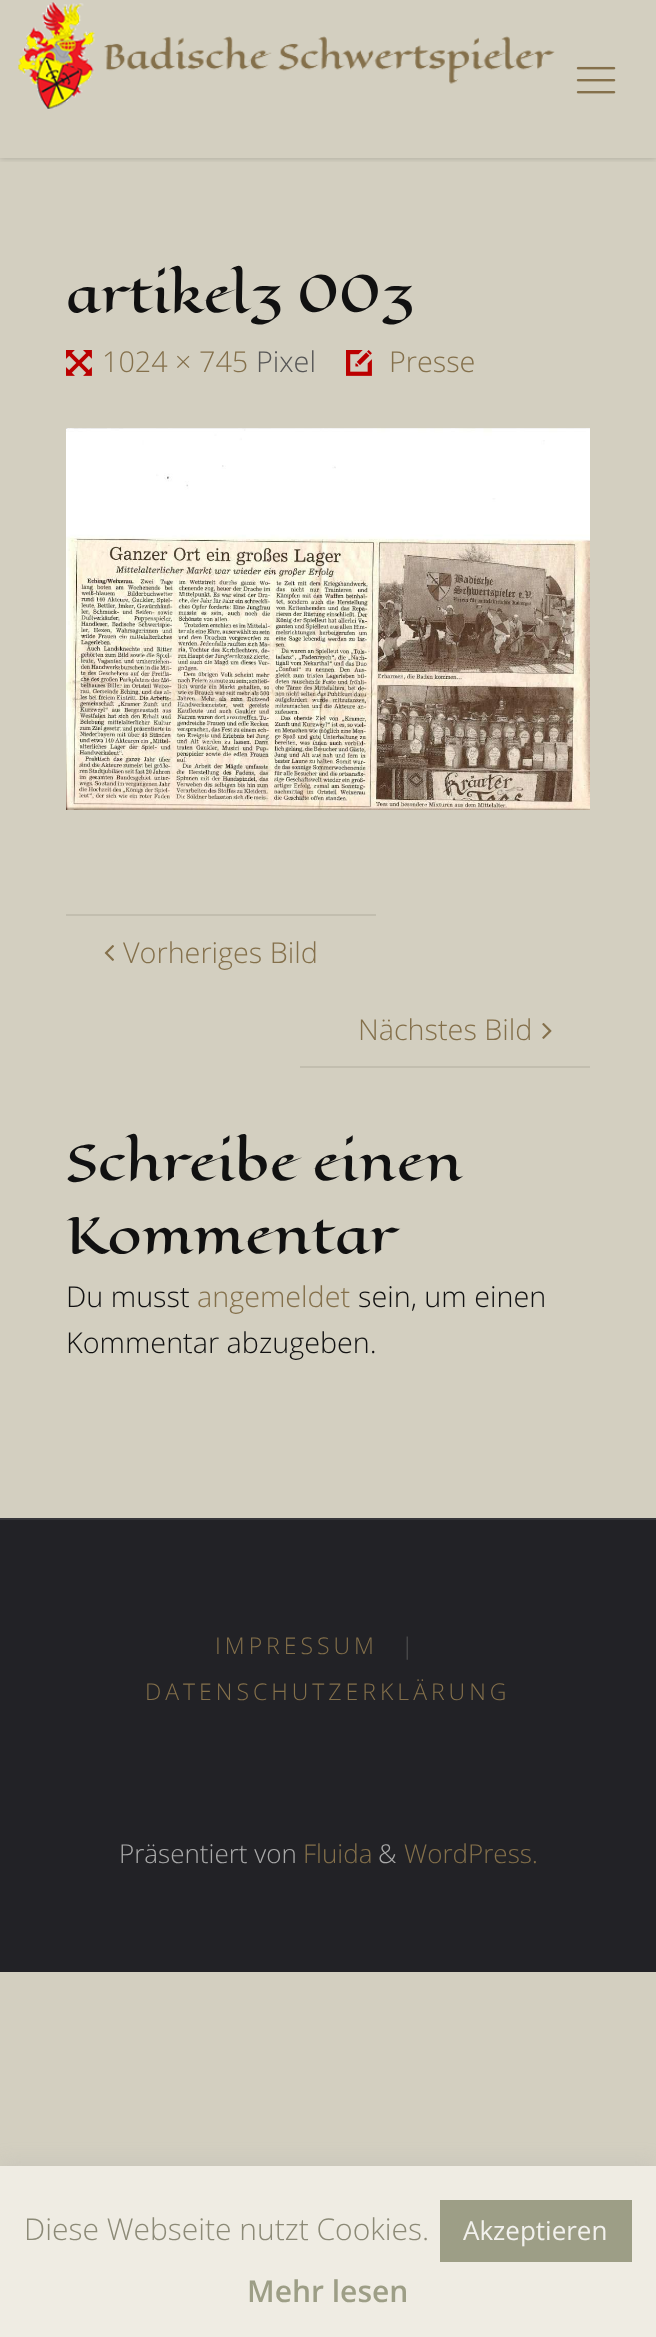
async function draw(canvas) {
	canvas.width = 656;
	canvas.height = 2337;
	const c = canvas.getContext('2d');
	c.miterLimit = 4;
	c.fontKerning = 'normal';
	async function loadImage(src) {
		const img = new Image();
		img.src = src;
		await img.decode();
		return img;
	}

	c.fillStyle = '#d3cfc0';
	c.fillRect(0, 0, 656, 2337);
	c.save();
	c.beginPath();
	c.rect(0, 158, 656, 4);
	c.clip();
	c.fillStyle = '#00000033';
	c.filter = 'blur(3px)';
	c.beginPath();
	c.rect(0, 0, 656, 158);
	c.fill();
	c.filter = 'none';
	c.restore();
	c.drawImage(await loadImage('img1.png'), 18, 2, 537, 107);
	c.drawImage(await loadImage('img2.png'), 576, 66, 40, 28);
	c.font = '49px Eagle Lake';
	c.fillStyle = '#111';
	c.fillText('artikel3 003', 66, 312);
	c.drawImage(await loadImage('img3.png'), 66, 350, 26, 26);
	c.font = '300 28.75px Open Sans';
	c.fillStyle = '#84704b';
	c.fillText('1024 × 745', 102, 372);
	c.fillStyle = '#565656';
	c.fillText('Pixel', 256, 372);
	c.drawImage(await loadImage('img4.png'), 346, 350, 26, 26);
	c.fillStyle = '#84704b';
	c.fillText('Presse', 389, 372);
	c.drawImage(await loadImage('img5.png'), 66, 428, 524, 382);
	c.fillStyle = '#c2beaf';
	c.fillRect(66, 914, 310, 2);
	c.drawImage(await loadImage('img6.png'), 104, 945, 10, 16);
	c.fillStyle = '#84704b';
	c.fillText('Vorheriges Bild', 123, 963);
	c.fillText('Nächstes Bild', 358, 1040);
	c.drawImage(await loadImage('img7.png'), 542, 1023, 10, 16);
	c.fillStyle = '#c2beaf';
	c.fillRect(300, 1066, 290, 2);
	c.wordSpacing = '-1px';
	c.font = '49px Eagle Lake';
	c.fillStyle = '#111';
	c.fillText('Schreibe einen', 66, 1180);
	c.wordSpacing = '0px';
	c.fillText('Kommentar', 66, 1253);
	c.font = '300 28.75px Open Sans';
	c.fillText('Du musst', 66, 1307);
	c.fillStyle = '#84704b';
	c.fillText('angemeldet', 197, 1307);
	c.fillStyle = '#111';
	c.fillText('sein, um einen', 358, 1307);
	c.fillText('Kommentar abzugeben.', 66, 1353);
	c.fillStyle = '#222226';
	c.fillRect(0, 1520, 656, 452);
	c.fillStyle = '#36363a';
	c.fillRect(0, 1518, 656, 2);
	c.letterSpacing = '4px';
	c.font = '300 23px Open Sans';
	c.fillStyle = '#84704b';
	c.fillText('IMPRESSUM', 215, 1654);
	c.fillStyle = '#565656';
	c.fillText('|', 401, 1654);
	c.fillStyle = '#84704b';
	c.fillText('DATENSCHUTZERKLÄRUNG', 145, 1700);
	c.letterSpacing = '0px';
	c.font = '300 26px Open Sans';
	c.fillStyle = '#aaa';
	c.fillText('Präsentiert von', 119, 1863);
	c.fillStyle = '#84704b';
	c.fillText('Fluida', 303, 1863);
	c.fillStyle = '#aaa';
	c.fillText('&', 378, 1863);
	c.fillStyle = '#84704b';
	c.fillText('WordPress.', 404, 1863);
	c.fillStyle = '#acabab4d';
	c.filter = 'blur(10px)';
	c.beginPath();
	c.rect(0, 2164, 656, 172);
	c.fill();
	c.filter = 'none';
	c.fillStyle = '#efece3';
	c.fillRect(0, 2166, 656, 171);
	c.font = '300 30px Open Sans';
	c.fillStyle = '#8c8a77';
	c.fillText('Diese Webseite nutzt Cookies.', 24, 2240);
	c.fillStyle = '#9d9e86';
	c.fillRect(440, 2200, 192, 62);
	c.font = '26px Open Sans';
	c.fillStyle = '#f2f1ed';
	c.fillText('Akzeptieren', 463, 2240);
	c.font = '600 30px Open Sans';
	c.fillStyle = '#9d9e86';
	c.fillText('Mehr lesen', 247, 2302);
}

draw(document.querySelector('canvas'));
